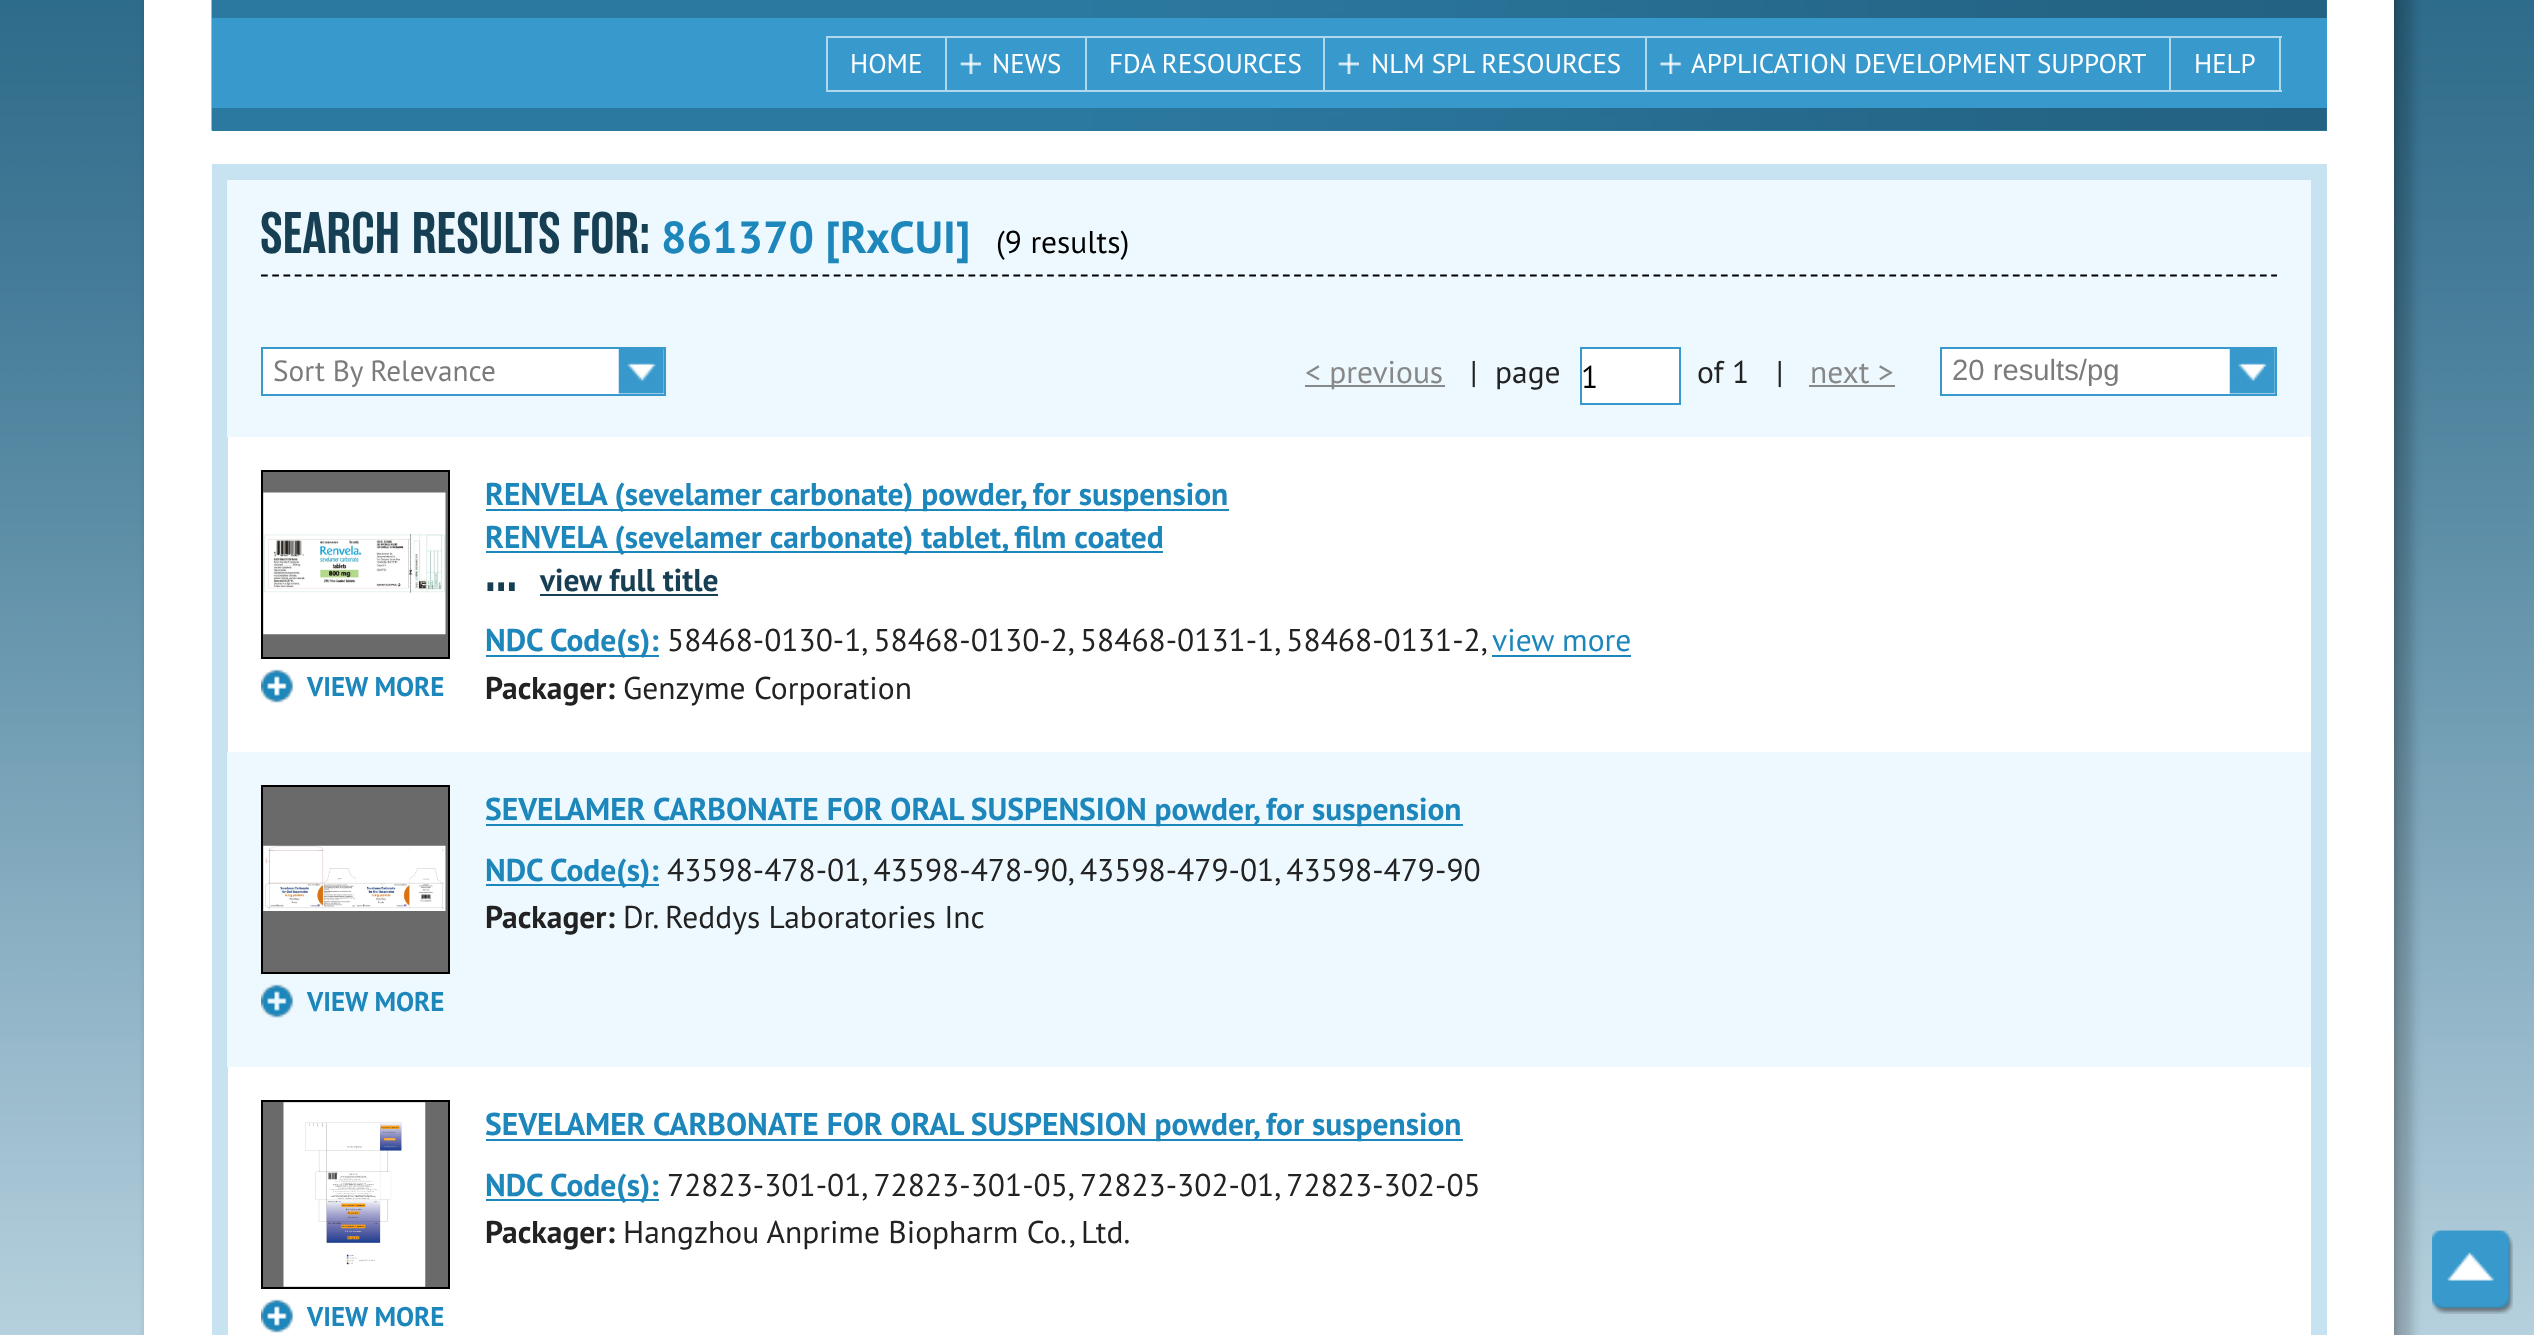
async function draw(canvas) {
	canvas.width = 2534;
	canvas.height = 1335;
	const c = canvas.getContext('2d');
	c.miterLimit = 4;
	c.fontKerning = 'normal';
	async function loadImage(src) {
		const img = new Image();
		img.src = src;
		await img.decode();
		return img;
	}

	c.fillStyle = '#fff';
	c.fillRect(0, 0, 2534, 1335);
	c.drawImage(await loadImage('img1.png'), 0, 0, 2534, 1335);
	c.fillStyle = '#00000033';
	c.filter = 'blur(3.5px)';
	c.beginPath();
	c.rect(146, -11, 2250, 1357);
	c.fill();
	c.filter = 'none';
	c.filter = 'blur(5.5px)';
	c.beginPath();
	c.rect(162, -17, 2250, 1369);
	c.fill();
	c.filter = 'none';
	c.fillStyle = '#fff';
	c.fillRect(144, 0, 2250, 1335);
	c.fillStyle = '#2b789f';
	c.fillRect(212, 0, 2115, 131);
	c.drawImage(await loadImage('img2.png'), 211, 0, 2116, 131);
	c.fillStyle = '#3899cc';
	c.fillRect(212, 18, 2115, 90);
	c.strokeStyle = '#b1d9ee';
	c.lineWidth = 2;
	c.strokeRect(827, 37, 119, 54);
	c.font = '27px PT Sans';
	c.fillStyle = '#fff';
	c.fillText('HOME', 850, 73);
	c.drawImage(await loadImage('img3.png'), 960, 53, 21, 21);
	for (const [x, y, w, h, color] of [
		[947, 36, 1335, 2, '#b1d9ee'],
		[1085, 36, 2, 56, '#b1d9ee'],
		[947, 90, 140, 2, '#b1d9ee'],
	]) {
		c.fillStyle = color;
		c.fillRect(x, y, w, h);
	}
	c.fillStyle = '#fff';
	c.fillText('NEWS', 992, 73);
	c.fillStyle = '#b1d9ee';
	c.fillRect(1323, 36, 2, 56);
	c.fillRect(1087, 90, 238, 2);
	c.fillStyle = '#fff';
	c.fillText('FDA RESOURCES', 1109, 73);
	c.drawImage(await loadImage('img3.png'), 1338, 53, 21, 21);
	c.fillStyle = '#b1d9ee';
	c.fillRect(1645, 36, 2, 56);
	c.fillRect(1325, 90, 322, 2);
	c.fillStyle = '#fff';
	c.fillText('NLM SPL RESOURCES', 1371, 73);
	c.drawImage(await loadImage('img4.png'), 1660, 53, 21, 21);
	c.fillStyle = '#b1d9ee';
	c.fillRect(2169, 36, 2, 56);
	c.fillRect(1647, 90, 524, 2);
	c.fillStyle = '#fff';
	c.fillText('APPLICATION DEVELOPMENT SUPPORT', 1691, 73);
	c.fillStyle = '#b1d9ee';
	c.fillRect(2279, 36, 2, 56);
	c.fillRect(2171, 90, 111, 2);
	c.fillStyle = '#fff';
	c.fillText('HELP', 2194, 73);
	c.strokeStyle = '#c7e2f1';
	c.lineWidth = 16;
	c.strokeRect(220, 172, 2099, 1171);
	c.fillStyle = '#edf9ff';
	c.fillRect(227, 180, 2084, 257);
	c.beginPath();
	c.moveTo(261, 275.5);
	c.lineTo(2277, 275.5);
	c.strokeStyle = '#000';
	c.lineWidth = 2.2;
	c.setLineDash([6.75, 4.48]);
	c.stroke();
	c.font = '600 58.5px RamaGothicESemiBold';
	c.fillStyle = '#173f54';
	c.fillText('SEARCH RESULTS FOR:', 260, 253);
	c.font = 'bold 45px PT Sans';
	c.fillStyle = '#1d86bb';
	c.fillText('861370 [RxCUI]', 661, 253);
	c.font = '31.5px PT Sans';
	c.fillStyle = '#000';
	c.fillText('(9 results)', 996, 253);
	c.fillStyle = '#fff';
	c.fillRect(263, 349, 401, 45);
	c.drawImage(await loadImage('img5.png'), 618, 349, 46, 45);
	c.strokeStyle = '#3899cc';
	c.lineWidth = 2;
	c.setLineDash([]);
	c.strokeRect(262, 348, 403, 47);
	c.font = '29.25px PT Sans';
	c.fillStyle = '#7b7b7b';
	c.fillText('Sort By Relevance', 273, 381);
	c.fillStyle = '#888';
	c.fillRect(1305, 385, 140, 2);
	c.font = '31.5px PT Sans';
	c.fillText('< previous', 1305, 383);
	c.fillStyle = '#222';
	c.fillText('|', 1470, 383);
	c.fillText('page', 1495, 383);
	c.fillStyle = '#fff';
	c.beginPath();
	c.rect(1581, 348, 99, 56);
	c.fill();
	c.stroke();
	c.fillStyle = '#000';
	c.fillText('1', 1581, 388);
	c.fillStyle = '#222';
	c.fillText('of 1', 1697, 383);
	c.fillText('|', 1776, 383);
	c.fillStyle = '#888';
	c.fillText('next >', 1810, 383);
	c.fillRect(1809, 385, 86, 2);
	c.fillStyle = '#fff';
	c.fillRect(1942, 349, 333, 45);
	c.drawImage(await loadImage('img6.png'), 2229, 349, 46, 45);
	c.strokeRect(1941, 348, 335, 47);
	c.font = '29.25px Liberation Sans';
	c.fillStyle = '#7b7b7b';
	c.fillText('20 results/pg', 1952, 380);
	c.fillStyle = '#6a6a6a';
	c.beginPath();
	c.rect(262, 471, 187, 187);
	c.fill();
	c.strokeStyle = '#000';
	c.stroke();
	c.drawImage(await loadImage('img7.png'), 263, 492, 183, 143);
	c.drawImage(await loadImage('img8.png'), 261, 669, 33, 34);
	c.font = 'bold 27px PT Sans';
	c.fillStyle = '#1d86bb';
	c.fillText('VIEW MORE', 307, 696);
	c.fillRect(486, 509, 743, 2);
	c.font = 'bold 31.5px PT Sans';
	c.fillText('RENVELA (sevelamer carbonate) powder, for suspension', 485, 505);
	c.fillRect(486, 551, 677, 2);
	c.fillText('RENVELA (sevelamer carbonate) tablet, film coated', 485, 548);
	c.font = '600 57px RamaGothicESemiBold';
	c.fillStyle = '#173f54';
	c.fillText('...', 485, 591);
	c.font = 'bold 31.5px PT Sans';
	c.fillText('view full title', 540, 591);
	c.fillRect(540, 594, 178, 2);
	c.fillStyle = '#1d86bb';
	c.fillRect(486, 655, 173, 2);
	c.fillText('NDC Code(s):', 485, 651);
	c.font = '31.5px PT Sans';
	c.fillStyle = '#222';
	c.fillText('58468-0130-1, 58468-0130-2, 58468-0131-1, 58468-0131-2,', 667, 651);
	c.fillStyle = '#1d86bb';
	c.fillText('view more', 1492, 651);
	c.fillRect(1492, 655, 139, 2);
	c.font = 'bold 31.5px PT Sans';
	c.fillStyle = '#222';
	c.fillText('Packager:', 485, 699);
	c.font = '31.5px PT Sans';
	c.fillText('Genzyme Corporation', 623, 699);
	c.fillStyle = '#edf9ff';
	c.fillRect(227, 752, 2084, 315);
	c.fillStyle = '#1d86bb';
	c.fillRect(486, 824, 977, 2);
	c.font = 'bold 31.5px PT Sans';
	c.fillText('SEVELAMER CARBONATE FOR ORAL SUSPENSION powder, for suspension', 485, 820);
	c.fillRect(486, 884, 173, 2);
	c.fillText('NDC Code(s):', 485, 881);
	c.font = '31.5px PT Sans';
	c.fillStyle = '#222';
	c.fillText('43598-478-01, 43598-478-90, 43598-479-01, 43598-479-90', 667, 881);
	c.font = 'bold 31.5px PT Sans';
	c.fillText('Packager:', 485, 928);
	c.font = '31.5px PT Sans';
	c.fillText('Dr. Reddys Laboratories Inc', 623, 928);
	c.fillStyle = '#6a6a6a';
	c.beginPath();
	c.rect(262, 786, 187, 187);
	c.fill();
	c.stroke();
	c.drawImage(await loadImage('img9.png'), 263, 845, 183, 66);
	c.drawImage(await loadImage('img10.png'), 261, 984, 33, 34);
	c.font = 'bold 27px PT Sans';
	c.fillStyle = '#1d86bb';
	c.fillText('VIEW MORE', 307, 1011);
	c.fillRect(486, 1139, 977, 2);
	c.font = 'bold 31.5px PT Sans';
	c.fillText('SEVELAMER CARBONATE FOR ORAL SUSPENSION powder, for suspension', 485, 1135);
	c.fillRect(486, 1199, 173, 2);
	c.fillText('NDC Code(s):', 485, 1196);
	c.font = '31.5px PT Sans';
	c.fillStyle = '#222';
	c.fillText('72823-301-01, 72823-301-05, 72823-302-01, 72823-302-05', 667, 1196);
	c.font = 'bold 31.5px PT Sans';
	c.fillText('Packager:', 485, 1243);
	c.font = '31.5px PT Sans';
	c.fillText('Hangzhou Anprime Biopharm Co., Ltd.', 623, 1243);
	c.fillStyle = '#6a6a6a';
	c.beginPath();
	c.rect(262, 1101, 187, 187);
	c.fill();
	c.stroke();
	c.drawImage(await loadImage('img11.png'), 283, 1102, 143, 185);
	c.drawImage(await loadImage('img8.png'), 261, 1299, 33, 34);
	c.font = 'bold 27px PT Sans';
	c.fillStyle = '#1d86bb';
	c.fillText('VIEW MORE', 307, 1326);
	c.drawImage(await loadImage('img12.png'), 2432, 1230, 81, 84);
	c.drawImage(await loadImage('img13.png'), 2432, 1230, 81, 84);
}

draw(document.querySelector('canvas'));
